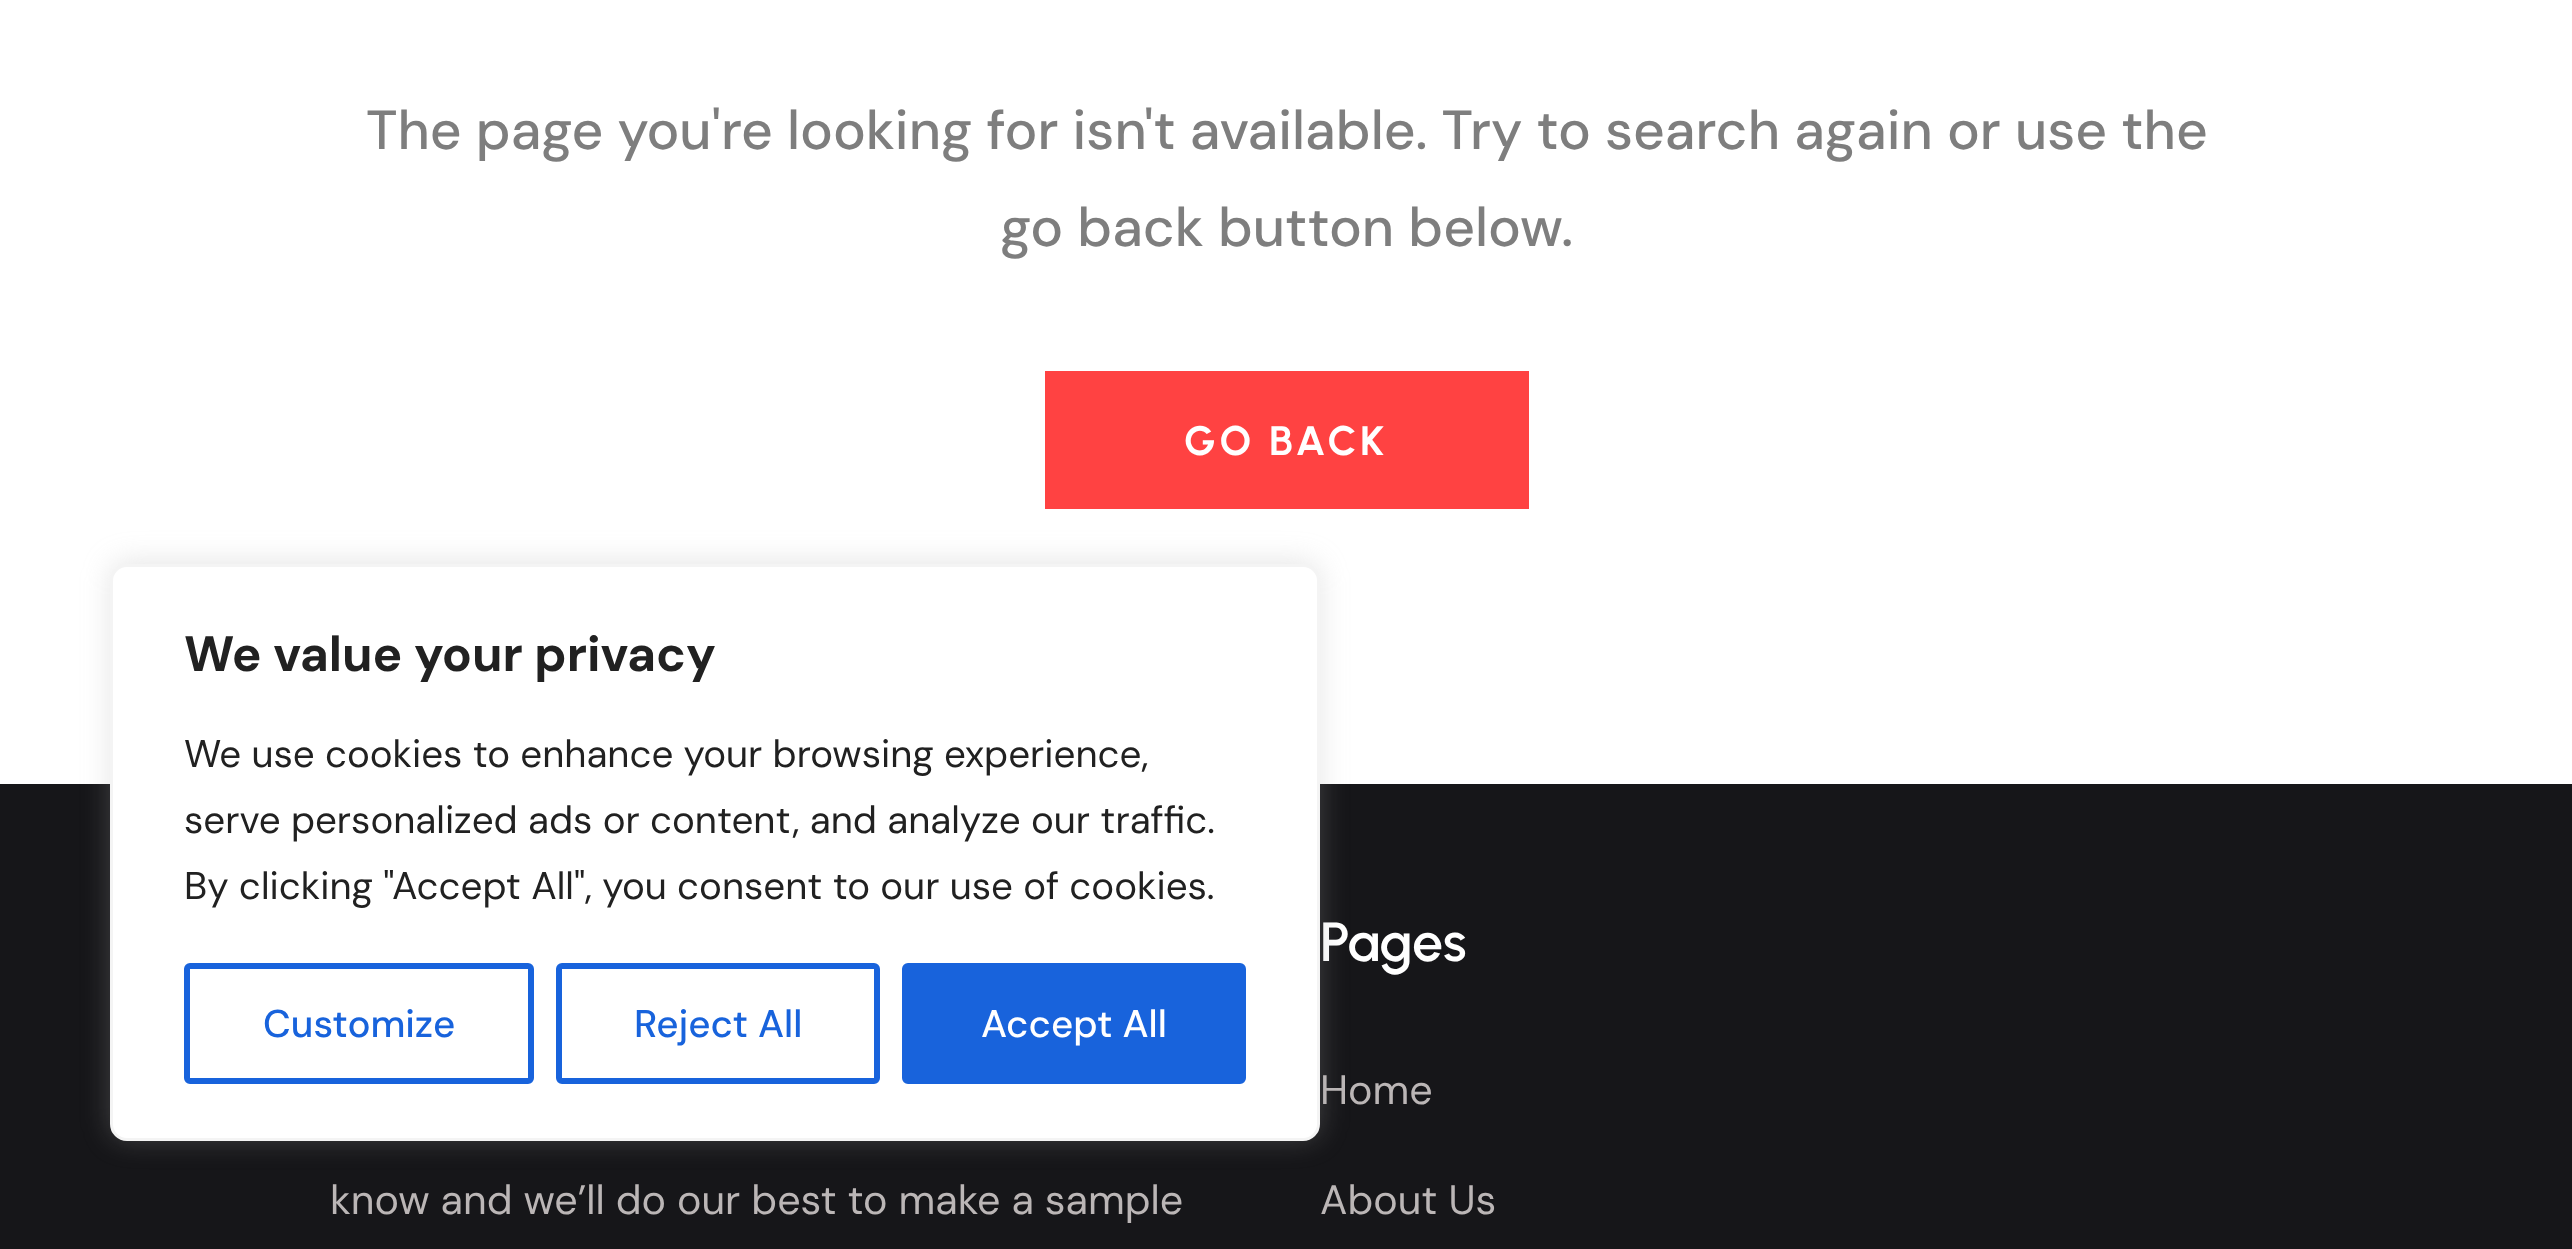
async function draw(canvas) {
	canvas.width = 2572;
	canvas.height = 1249;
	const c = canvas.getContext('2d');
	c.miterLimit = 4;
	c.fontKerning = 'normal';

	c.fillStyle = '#fff';
	c.fillRect(0, 0, 2572, 1249);
	c.font = '500 55px DM Sans';
	c.fillStyle = '#7e7e7e';
	c.fillText('The page you\'re looking for isn\'t available. Try to search again or use the', 366, 149);
	c.fillText('go back button below.', 1000, 246);
	c.fillStyle = '#ff4242';
	c.fillRect(1045, 371, 484, 138);
	c.letterSpacing = '4px';
	c.font = 'bold 41.25px Urbanist';
	c.fillStyle = '#fff';
	c.fillText('GO BACK', 1184, 455);
	c.fillStyle = '#161619';
	c.fillRect(0, 784, 2572, 465);
	c.letterSpacing = '0px';
	c.font = '41.25px DM Sans';
	c.fillStyle = '#bbb6b6';
	c.fillText('know and we’ll do our best to make a sample', 330, 1214);
	c.font = '600 55px Urbanist';
	c.fillStyle = '#fff';
	c.fillText('Pages', 1320, 961);
	c.font = '41.25px DM Sans';
	c.fillStyle = '#bbb6b6';
	c.fillText('Home', 1320, 1104);
	c.fillText('About Us', 1320, 1214);
	c.fillStyle = '#acabab4d';
	c.filter = 'blur(14px)';
	c.beginPath();
	c.roundRect(110, 561, 1210, 578, 17);
	c.fill();
	c.filter = 'none';
	c.fillStyle = '#fff';
	c.beginPath();
	c.roundRect(111.5, 565.5, 1207, 574, 15.5);
	c.fill();
	c.strokeStyle = '#f4f4f4';
	c.lineWidth = 3;
	c.stroke();
	c.font = 'bold 49.5px DM Sans';
	c.fillStyle = '#212121';
	c.fillText('We value your privacy', 184, 671);
	c.font = '38.5px DM Sans';
	for (const [text, x, y] of [
		['We use cookies to enhance your browsing experience,', 184, 767],
		['serve personalized ads or content, and analyze our traffic.', 184, 833],
		['By clicking "Accept All", you consent to our use of cookies.', 184, 899],
	]) {
		c.fillText(text, x, y);
	}
	c.beginPath();
	c.roundRect(187, 966, 344, 115, 3);
	c.strokeStyle = '#1863dc';
	c.lineWidth = 6;
	c.stroke();
	c.font = '500 38.5px DM Sans';
	c.fillStyle = '#1863dc';
	c.fillText('Customize', 263, 1037);
	c.beginPath();
	c.roundRect(559, 966, 318, 115, 3);
	c.stroke();
	c.fillText('Reject All', 634, 1037);
	c.beginPath();
	c.roundRect(905, 966, 338, 115, 3);
	c.fill();
	c.stroke();
	c.fillStyle = '#fff';
	c.fillText('Accept All', 981, 1037);
}

draw(document.querySelector('canvas'));
